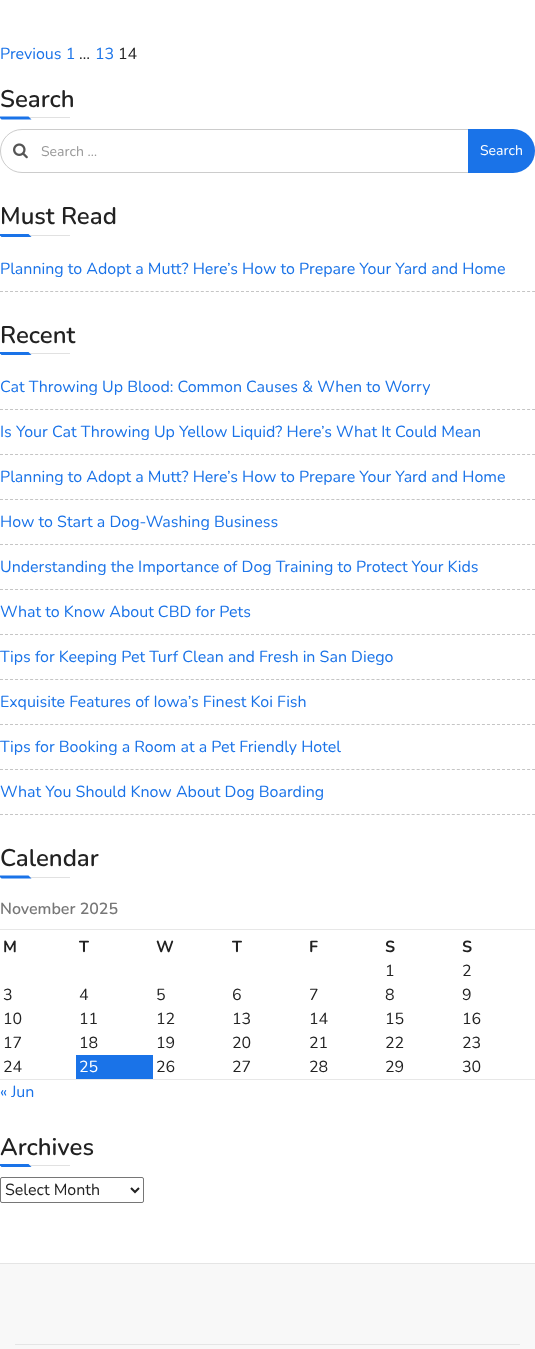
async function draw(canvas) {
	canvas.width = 535;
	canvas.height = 1349;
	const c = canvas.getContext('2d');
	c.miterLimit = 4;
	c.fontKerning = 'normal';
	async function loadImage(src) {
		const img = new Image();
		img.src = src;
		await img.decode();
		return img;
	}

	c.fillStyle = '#fff';
	c.fillRect(0, 0, 535, 1349);
	c.font = '16px Nunito';
	c.fillStyle = '#1a73e8';
	c.fillText('Previous 1', 0, 59);
	c.fillStyle = '#222';
	c.fillText('…', 79, 59);
	c.fillStyle = '#1a73e8';
	c.fillText('13', 95, 59);
	c.fillStyle = '#222';
	c.fillText('14', 118, 59);
	c.font = '600 24px Nunito';
	c.fillText('Search', 0, 107);
	c.fillStyle = '#e1e1e1';
	c.fillRect(29, 117, 41, 1);
	c.fillStyle = '#1a73e8';
	c.beginPath();
	c.moveTo(-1.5, 116.5);
	c.lineTo(28.5, 116.5);
	c.lineTo(31.5, 119.5);
	c.lineTo(1.5, 119.5);
	c.closePath();
	c.fill();
	c.beginPath();
	c.roundRect(0.5, 129.5, 468, 43, [21.5, 0, 0, 21.5]);
	c.strokeStyle = '#ccc';
	c.stroke();
	c.drawImage(await loadImage('img1.png'), 13, 143, 15, 16);
	c.font = '14px Nunito';
	c.fillStyle = '#999';
	c.fillText('Search …', 41, 156);
	c.fillStyle = '#1a73e8';
	c.beginPath();
	c.roundRect(468, 129, 67, 44, [0, 22, 22, 0]);
	c.fill();
	c.fillStyle = '#fff';
	c.fillText('Search', 480, 155);
	c.font = '600 24px Nunito';
	c.fillStyle = '#222';
	c.fillText('Must Read', 0, 224);
	c.fillStyle = '#e1e1e1';
	c.fillRect(0, 235, 70, 1);
	c.fillStyle = '#1a73e8';
	c.beginPath();
	c.moveTo(-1.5, 234);
	c.lineTo(28.5, 234);
	c.lineTo(31.5, 237);
	c.lineTo(1.5, 237);
	c.closePath();
	c.fill();
	c.beginPath();
	c.moveTo(0, 291.5);
	c.lineTo(535, 291.5);
	c.strokeStyle = '#c5c5c5';
	c.setLineDash([3, 2.02]);
	c.stroke();
	c.font = '16px Nunito';
	c.fillText('Planning to Adopt a Mutt? Here’s How to Prepare Your Yard and Home', 0, 274);
	c.font = '600 24px Nunito';
	c.fillStyle = '#222';
	c.fillText('Recent', 0, 343);
	c.fillStyle = '#e1e1e1';
	c.fillRect(0, 353, 70, 1);
	c.fillStyle = '#1a73e8';
	c.beginPath();
	c.moveTo(-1.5, 352);
	c.lineTo(28.5, 352);
	c.lineTo(31.5, 355);
	c.lineTo(1.5, 355);
	c.closePath();
	c.fill();
	c.beginPath();
	c.moveTo(0, 409.5);
	c.lineTo(535, 409.5);
	c.stroke();
	c.font = '16px Nunito';
	c.fillText('Cat Throwing Up Blood: Common Causes & When to Worry', 0, 392);
	c.beginPath();
	c.moveTo(0, 454.5);
	c.lineTo(535, 454.5);
	c.stroke();
	c.fillText('Is Your Cat Throwing Up Yellow Liquid? Here’s What It Could Mean', 0, 437);
	c.beginPath();
	c.moveTo(0, 499.5);
	c.lineTo(535, 499.5);
	c.stroke();
	c.fillText('Planning to Adopt a Mutt? Here’s How to Prepare Your Yard and Home', 0, 482);
	c.beginPath();
	c.moveTo(0, 544.5);
	c.lineTo(535, 544.5);
	c.stroke();
	c.fillText('How to Start a Dog-Washing Business', 0, 527);
	c.beginPath();
	c.moveTo(0, 589.5);
	c.lineTo(535, 589.5);
	c.stroke();
	c.fillText('Understanding the Importance of Dog Training to Protect Your Kids', 0, 572);
	c.beginPath();
	c.moveTo(0, 634.5);
	c.lineTo(535, 634.5);
	c.stroke();
	c.fillText('What to Know About CBD for Pets', 0, 617);
	c.beginPath();
	c.moveTo(0, 679.5);
	c.lineTo(535, 679.5);
	c.stroke();
	c.fillText('Tips for Keeping Pet Turf Clean and Fresh in San Diego', 0, 662);
	c.beginPath();
	c.moveTo(0, 724.5);
	c.lineTo(535, 724.5);
	c.stroke();
	c.fillText('Exquisite Features of Iowa’s Finest Koi Fish', 0, 707);
	c.beginPath();
	c.moveTo(0, 769.5);
	c.lineTo(535, 769.5);
	c.stroke();
	c.fillText('Tips for Booking a Room at a Pet Friendly Hotel', 0, 752);
	c.beginPath();
	c.moveTo(0, 814.5);
	c.lineTo(535, 814.5);
	c.stroke();
	c.fillText('What You Should Know About Dog Boarding', 0, 797);
	c.font = '600 24px Nunito';
	c.fillStyle = '#222';
	c.fillText('Calendar', 0, 866);
	c.fillStyle = '#e1e1e1';
	c.fillRect(0, 877, 70, 1);
	c.fillStyle = '#1a73e8';
	c.beginPath();
	c.moveTo(-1.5, 875.5);
	c.lineTo(28.5, 875.5);
	c.lineTo(31.5, 878.5);
	c.lineTo(1.5, 878.5);
	c.closePath();
	c.fill();
	c.fillStyle = '#e7e7e7';
	c.fillRect(0, 929, 535, 1);
	c.font = '600 16px Nunito';
	c.fillStyle = '#777';
	c.fillText('November 2025', 0, 914);
	c.font = 'bold 16px Nunito';
	c.fillStyle = '#222';
	for (const [text, x, y] of [
		['M', 3, 952],
		['T', 79, 952],
		['W', 156, 952],
		['T', 232, 952],
		['F', 309, 952],
		['S', 385, 952],
		['S', 462, 952],
	]) {
		c.fillText(text, x, y);
	}
	c.fillStyle = '#e7e7e7';
	c.fillRect(0, 1079, 535, 1);
	c.font = '16px Nunito';
	c.fillStyle = '#222';
	for (const [text, x, y] of [
		['1', 385, 976],
		['2', 462, 976],
		['3', 3, 1000],
		['4', 79, 1000],
		['5', 156, 1000],
		['6', 232, 1000],
		['7', 309, 1000],
		['8', 385, 1000],
		['9', 462, 1000],
		['10', 3, 1024],
		['11', 79, 1024],
		['12', 156, 1024],
		['13', 232, 1024],
		['14', 309, 1024],
		['15', 385, 1024],
		['16', 462, 1024],
		['17', 3, 1048],
		['18', 79, 1048],
		['19', 156, 1048],
		['20', 232, 1048],
		['21', 309, 1048],
		['22', 385, 1048],
		['23', 462, 1048],
		['24', 3, 1072],
	]) {
		c.fillText(text, x, y);
	}
	c.fillStyle = '#1a73e8';
	c.fillRect(76, 1055, 77, 24);
	c.fillStyle = '#fff';
	c.fillText('25', 79, 1072);
	c.fillStyle = '#222';
	for (const [text, x, y] of [
		['26', 156, 1072],
		['27', 232, 1072],
		['28', 309, 1072],
		['29', 385, 1072],
		['30', 462, 1072],
	]) {
		c.fillText(text, x, y);
	}
	c.fillStyle = '#1a73e8';
	c.fillText('« Jun', 0, 1097);
	c.font = '600 24px Nunito';
	c.fillStyle = '#222';
	c.fillText('Archives', 0, 1155);
	c.fillStyle = '#e1e1e1';
	c.fillRect(0, 1165, 70, 1);
	c.fillStyle = '#1a73e8';
	c.beginPath();
	c.moveTo(-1.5, 1164);
	c.lineTo(28.5, 1164);
	c.lineTo(31.5, 1167);
	c.lineTo(1.5, 1167);
	c.closePath();
	c.fill();
	c.beginPath();
	c.roundRect(0.5, 1177.5, 143, 25, 1.5);
	c.strokeStyle = '#767676';
	c.setLineDash([]);
	c.stroke();
	c.beginPath();
	c.moveTo(131, 1188);
	c.lineTo(135, 1192);
	c.lineTo(139, 1188);
	c.strokeStyle = '#222';
	c.lineWidth = 2;
	c.stroke();
	c.font = '16px Nunito';
	c.fillStyle = '#222';
	c.fillText('Select Month', 5, 1195);
	for (const [x, y, w, h, color] of [
		[0, 1264, 535, 85, '#f8f8f8'],
		[0, 1263, 535, 1, '#e5e5e5'],
		[15, 1344, 505, 1, '#e5e5e5'],
	]) {
		c.fillStyle = color;
		c.fillRect(x, y, w, h);
	}
}

draw(document.querySelector('canvas'));
